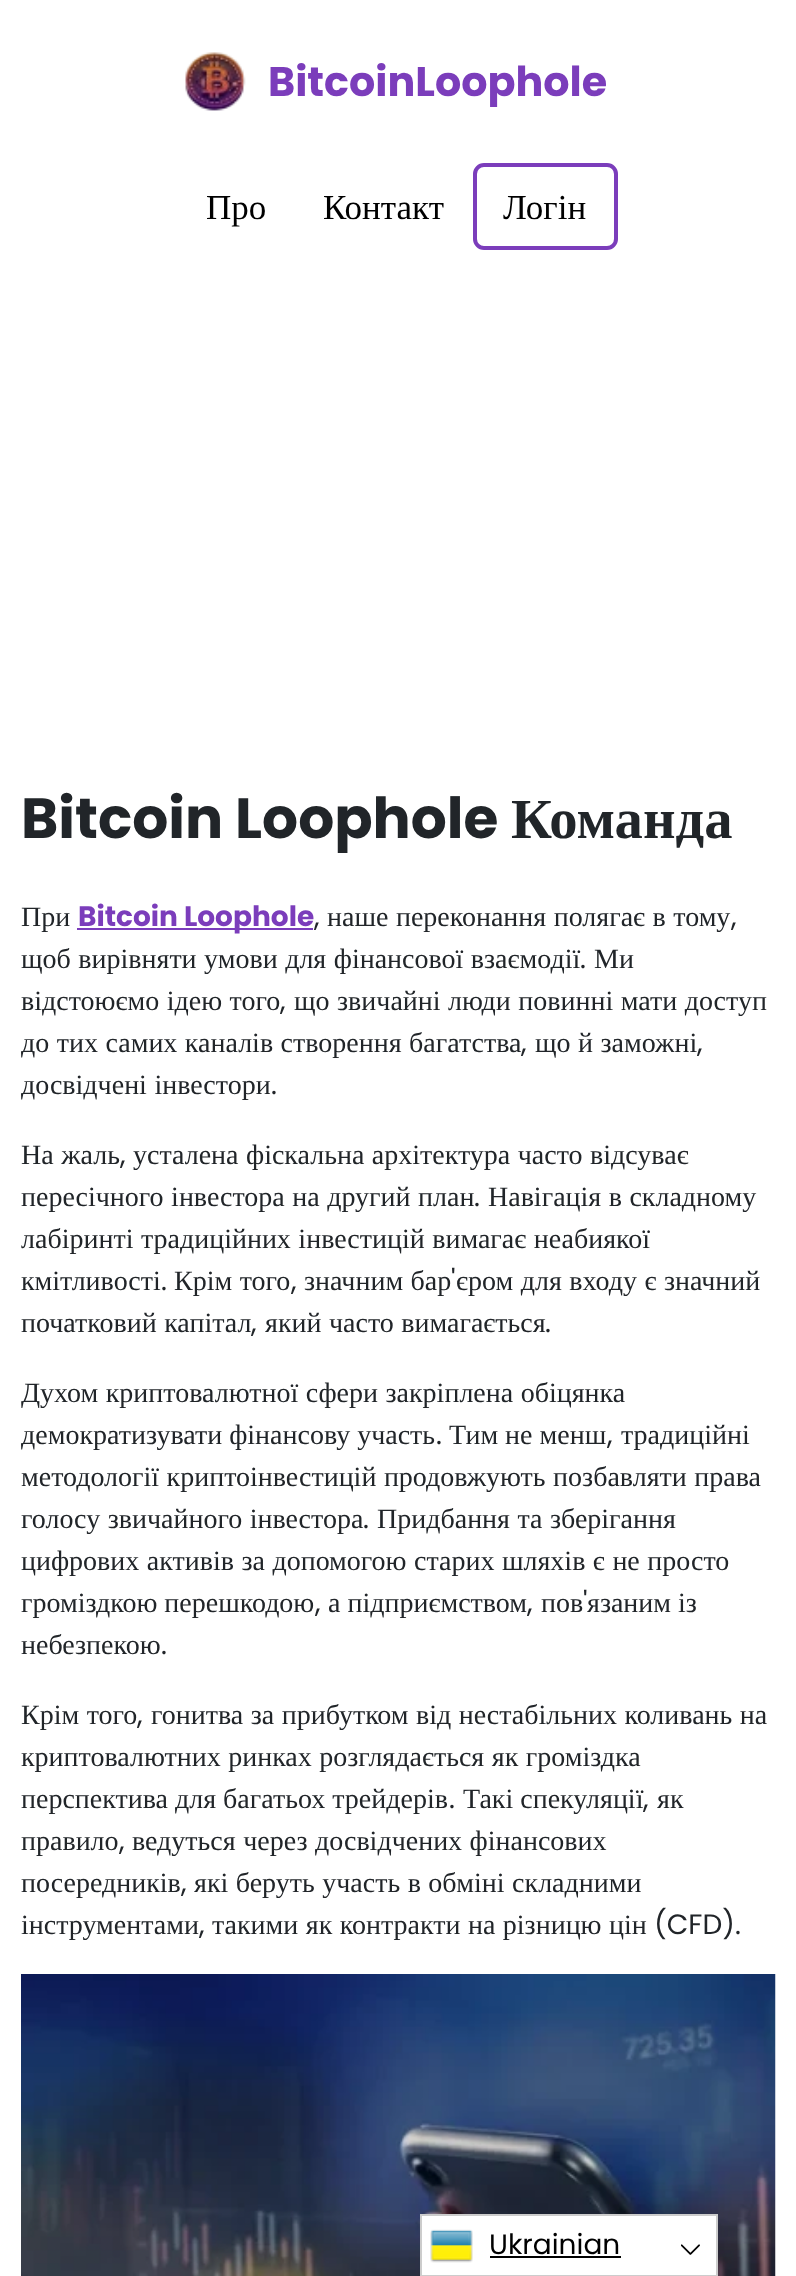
async function draw(canvas) {
	canvas.width = 796;
	canvas.height = 2276;
	const c = canvas.getContext('2d');
	c.miterLimit = 4;
	c.fontKerning = 'normal';
	async function loadImage(src) {
		const img = new Image();
		img.src = src;
		await img.decode();
		return img;
	}

	c.fillStyle = '#fff';
	c.fillRect(0, 0, 796, 2276);
	c.drawImage(await loadImage('img1.png'), 185, 52, 61, 59);
	c.font = 'bold 41.25px Poppins';
	c.fillStyle = '#7b3dbb';
	c.fillText('BitcoinLoophole', 268, 96);
	c.font = '35px Liberation Serif';
	c.fillStyle = '#000';
	c.fillText('Про', 206, 219);
	c.fillText('Контакт', 323, 219);
	c.beginPath();
	c.roundRect(475, 165, 141, 83, 9);
	c.strokeStyle = '#7b3dbb';
	c.lineWidth = 4;
	c.stroke();
	c.fillText('Логін', 503, 219);
	c.font = 'bold 56.6px Poppins';
	c.fillStyle = '#212529';
	c.fillText('Bitcoin Loophole', 21, 838);
	c.font = 'bold 56.6px Liberation Serif';
	c.fillText('Команда', 511, 838);
	c.font = '28px Liberation Serif';
	c.fillText('При', 21, 926);
	c.fillStyle = '#7b3dbb';
	c.fillRect(77, 928, 236, 2);
	c.font = 'bold 28px Poppins';
	c.fillText('Bitcoin Loophole', 78, 926);
	c.font = '28px Poppins';
	c.fillStyle = '#212529';
	c.fillText(',', 314, 926);
	c.wordSpacing = '0.5px';
	c.font = '28px Liberation Serif';
	c.fillText('наше переконання полягає в тому', 327, 926);
	c.wordSpacing = '0px';
	c.font = '28px Poppins';
	c.fillText(',', 731, 926);
	c.wordSpacing = '0.5px';
	c.font = '28px Liberation Serif';
	c.fillText('щоб вирівняти умови для фінансової взаємодії', 21, 968);
	c.wordSpacing = '0px';
	c.font = '28px Poppins';
	c.fillText('.', 580, 968);
	c.font = '28px Liberation Serif';
	c.fillText('Ми', 594, 968);
	c.wordSpacing = '0.5px';
	c.fillText('відстоюємо ідею того', 21, 1010);
	c.wordSpacing = '0px';
	c.font = '28px Poppins';
	c.fillText(',', 280, 1010);
	c.wordSpacing = '0.5px';
	c.font = '28px Liberation Serif';
	c.fillText('що звичайні люди повинні мати доступ', 294, 1010);
	c.fillText('до тих самих каналів створення багатства', 21, 1052);
	c.wordSpacing = '0px';
	c.font = '28px Poppins';
	c.fillText(',', 521, 1052);
	c.wordSpacing = '0.5px';
	c.font = '28px Liberation Serif';
	c.fillText('що й заможні', 535, 1052);
	c.wordSpacing = '0px';
	c.font = '28px Poppins';
	c.fillText(',', 697, 1052);
	c.wordSpacing = '0.5px';
	c.font = '28px Liberation Serif';
	c.fillText('досвідчені інвестори', 21, 1094);
	c.wordSpacing = '0px';
	c.font = '28px Poppins';
	c.fillText('.', 271, 1094);
	c.wordSpacing = '0.5px';
	c.font = '28px Liberation Serif';
	c.fillText('На жаль', 21, 1164);
	c.wordSpacing = '0px';
	c.font = '28px Poppins';
	c.fillText(',', 120, 1164);
	c.wordSpacing = '0.5px';
	c.font = '28px Liberation Serif';
	c.fillText('усталена фіскальна архітектура часто відсуває', 133, 1164);
	c.fillText('пересічного інвестора на другий план', 21, 1206);
	c.wordSpacing = '0px';
	c.font = '28px Poppins';
	c.fillText('.', 474, 1206);
	c.wordSpacing = '0.5px';
	c.font = '28px Liberation Serif';
	c.fillText('Навігація в складному', 488, 1206);
	c.fillText('лабіринті традиційних інвестицій вимагає неабиякої', 21, 1248);
	c.wordSpacing = '0px';
	c.fillText('кмітливості', 21, 1290);
	c.font = '28px Poppins';
	c.fillText('.', 161, 1290);
	c.wordSpacing = '0.5px';
	c.font = '28px Liberation Serif';
	c.fillText('Крім того', 174, 1290);
	c.wordSpacing = '0px';
	c.font = '28px Poppins';
	c.fillText(',', 291, 1290);
	c.wordSpacing = '0.5px';
	c.font = '28px Liberation Serif';
	c.fillText('значним бар', 304, 1290);
	c.wordSpacing = '0px';
	c.font = '28px Poppins';
	c.fillText('\'', 451, 1290);
	c.wordSpacing = '0.5px';
	c.font = '28px Liberation Serif';
	c.fillText('єром для входу є значний', 456, 1290);
	c.fillText('початковий капітал', 21, 1332);
	c.wordSpacing = '0px';
	c.font = '28px Poppins';
	c.fillText(',', 251, 1332);
	c.wordSpacing = '0.5px';
	c.font = '28px Liberation Serif';
	c.fillText('який часто вимагається', 265, 1332);
	c.wordSpacing = '0px';
	c.font = '28px Poppins';
	c.fillText('.', 545, 1332);
	c.wordSpacing = '0.5px';
	c.font = '28px Liberation Serif';
	c.fillText('Духом криптовалютної сфери закріплена обіцянка', 21, 1402);
	c.wordSpacing = '0px';
	c.fillText('демократизувати фінансову участь', 21, 1444);
	c.font = '28px Poppins';
	c.fillText('.', 436, 1444);
	c.font = '28px Liberation Serif';
	c.fillText('Тим не менш', 449, 1444);
	c.font = '28px Poppins';
	c.fillText(',', 607, 1444);
	c.font = '28px Liberation Serif';
	c.fillText('традиційні', 621, 1444);
	c.wordSpacing = '0.5px';
	c.fillText('методології криптоінвестицій продовжують позбавляти права', 21, 1486);
	c.fillText('голосу звичайного інвестора', 21, 1528);
	c.wordSpacing = '0px';
	c.font = '28px Poppins';
	c.fillText('.', 363, 1528);
	c.wordSpacing = '0.5px';
	c.font = '28px Liberation Serif';
	c.fillText('Придбання та зберігання', 377, 1528);
	c.fillText('цифрових активів за допомогою старих шляхів є не просто', 21, 1570);
	c.wordSpacing = '0px';
	c.fillText('громіздкою перешкодою', 21, 1612);
	c.font = '28px Poppins';
	c.fillText(',', 315, 1612);
	c.font = '28px Liberation Serif';
	c.fillText('а підприємством', 328, 1612);
	c.font = '28px Poppins';
	c.fillText(',', 527, 1612);
	c.font = '28px Liberation Serif';
	c.fillText('пов', 541, 1612);
	c.font = '28px Poppins';
	c.fillText('\'', 583, 1612);
	c.font = '28px Liberation Serif';
	c.fillText('язаним із', 587, 1612);
	c.fillText('небезпекою', 21, 1654);
	c.font = '28px Poppins';
	c.fillText('.', 161, 1654);
	c.wordSpacing = '0.5px';
	c.font = '28px Liberation Serif';
	c.fillText('Крім того', 21, 1724);
	c.wordSpacing = '0px';
	c.font = '28px Poppins';
	c.fillText(',', 137, 1724);
	c.wordSpacing = '0.5px';
	c.font = '28px Liberation Serif';
	c.fillText('гонитва за прибутком від нестабільних коливань на', 151, 1724);
	c.fillText('криптовалютних ринках розглядається як громіздка', 21, 1766);
	c.wordSpacing = '0px';
	c.fillText('перспектива для багатьох трейдерів', 21, 1808);
	c.font = '28px Poppins';
	c.fillText('.', 449, 1808);
	c.font = '28px Liberation Serif';
	c.fillText('Такі спекуляції', 463, 1808);
	c.font = '28px Poppins';
	c.fillText(',', 643, 1808);
	c.font = '28px Liberation Serif';
	c.fillText('як', 657, 1808);
	c.fillText('правило', 21, 1850);
	c.font = '28px Poppins';
	c.fillText(',', 119, 1850);
	c.wordSpacing = '0.5px';
	c.font = '28px Liberation Serif';
	c.fillText('ведуться через досвідчених фінансових', 132, 1850);
	c.wordSpacing = '0px';
	c.fillText('посередників', 21, 1892);
	c.font = '28px Poppins';
	c.fillText(',', 181, 1892);
	c.wordSpacing = '0.5px';
	c.font = '28px Liberation Serif';
	c.fillText('які беруть участь в обміні складними', 194, 1892);
	c.wordSpacing = '0px';
	c.fillText('інструментами', 21, 1934);
	c.font = '28px Poppins';
	c.fillText(',', 199, 1934);
	c.wordSpacing = '0.5px';
	c.font = '28px Liberation Serif';
	c.fillText('такими як контракти на різницю цін', 212, 1934);
	c.wordSpacing = '0px';
	c.font = '28px Poppins';
	c.fillText('(CFD).', 654, 1934);
	c.drawImage(await loadImage('img2.png'), 21, 1974, 755, 302);
	c.fillStyle = '#fff';
	c.beginPath();
	c.rect(421, 2215, 296, 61);
	c.fill();
	c.strokeStyle = '#ccc';
	c.lineWidth = 2;
	c.stroke();
	c.drawImage(await loadImage('img3.png'), 430, 2229, 43, 34);
	c.fillStyle = '#000';
	c.fillText('Ukrainian', 489, 2254);
	c.fillRect(490, 2256, 131, 2);
	c.drawImage(await loadImage('img4.png'), 681, 2244, 19, 11);
}

draw(document.querySelector('canvas'));
